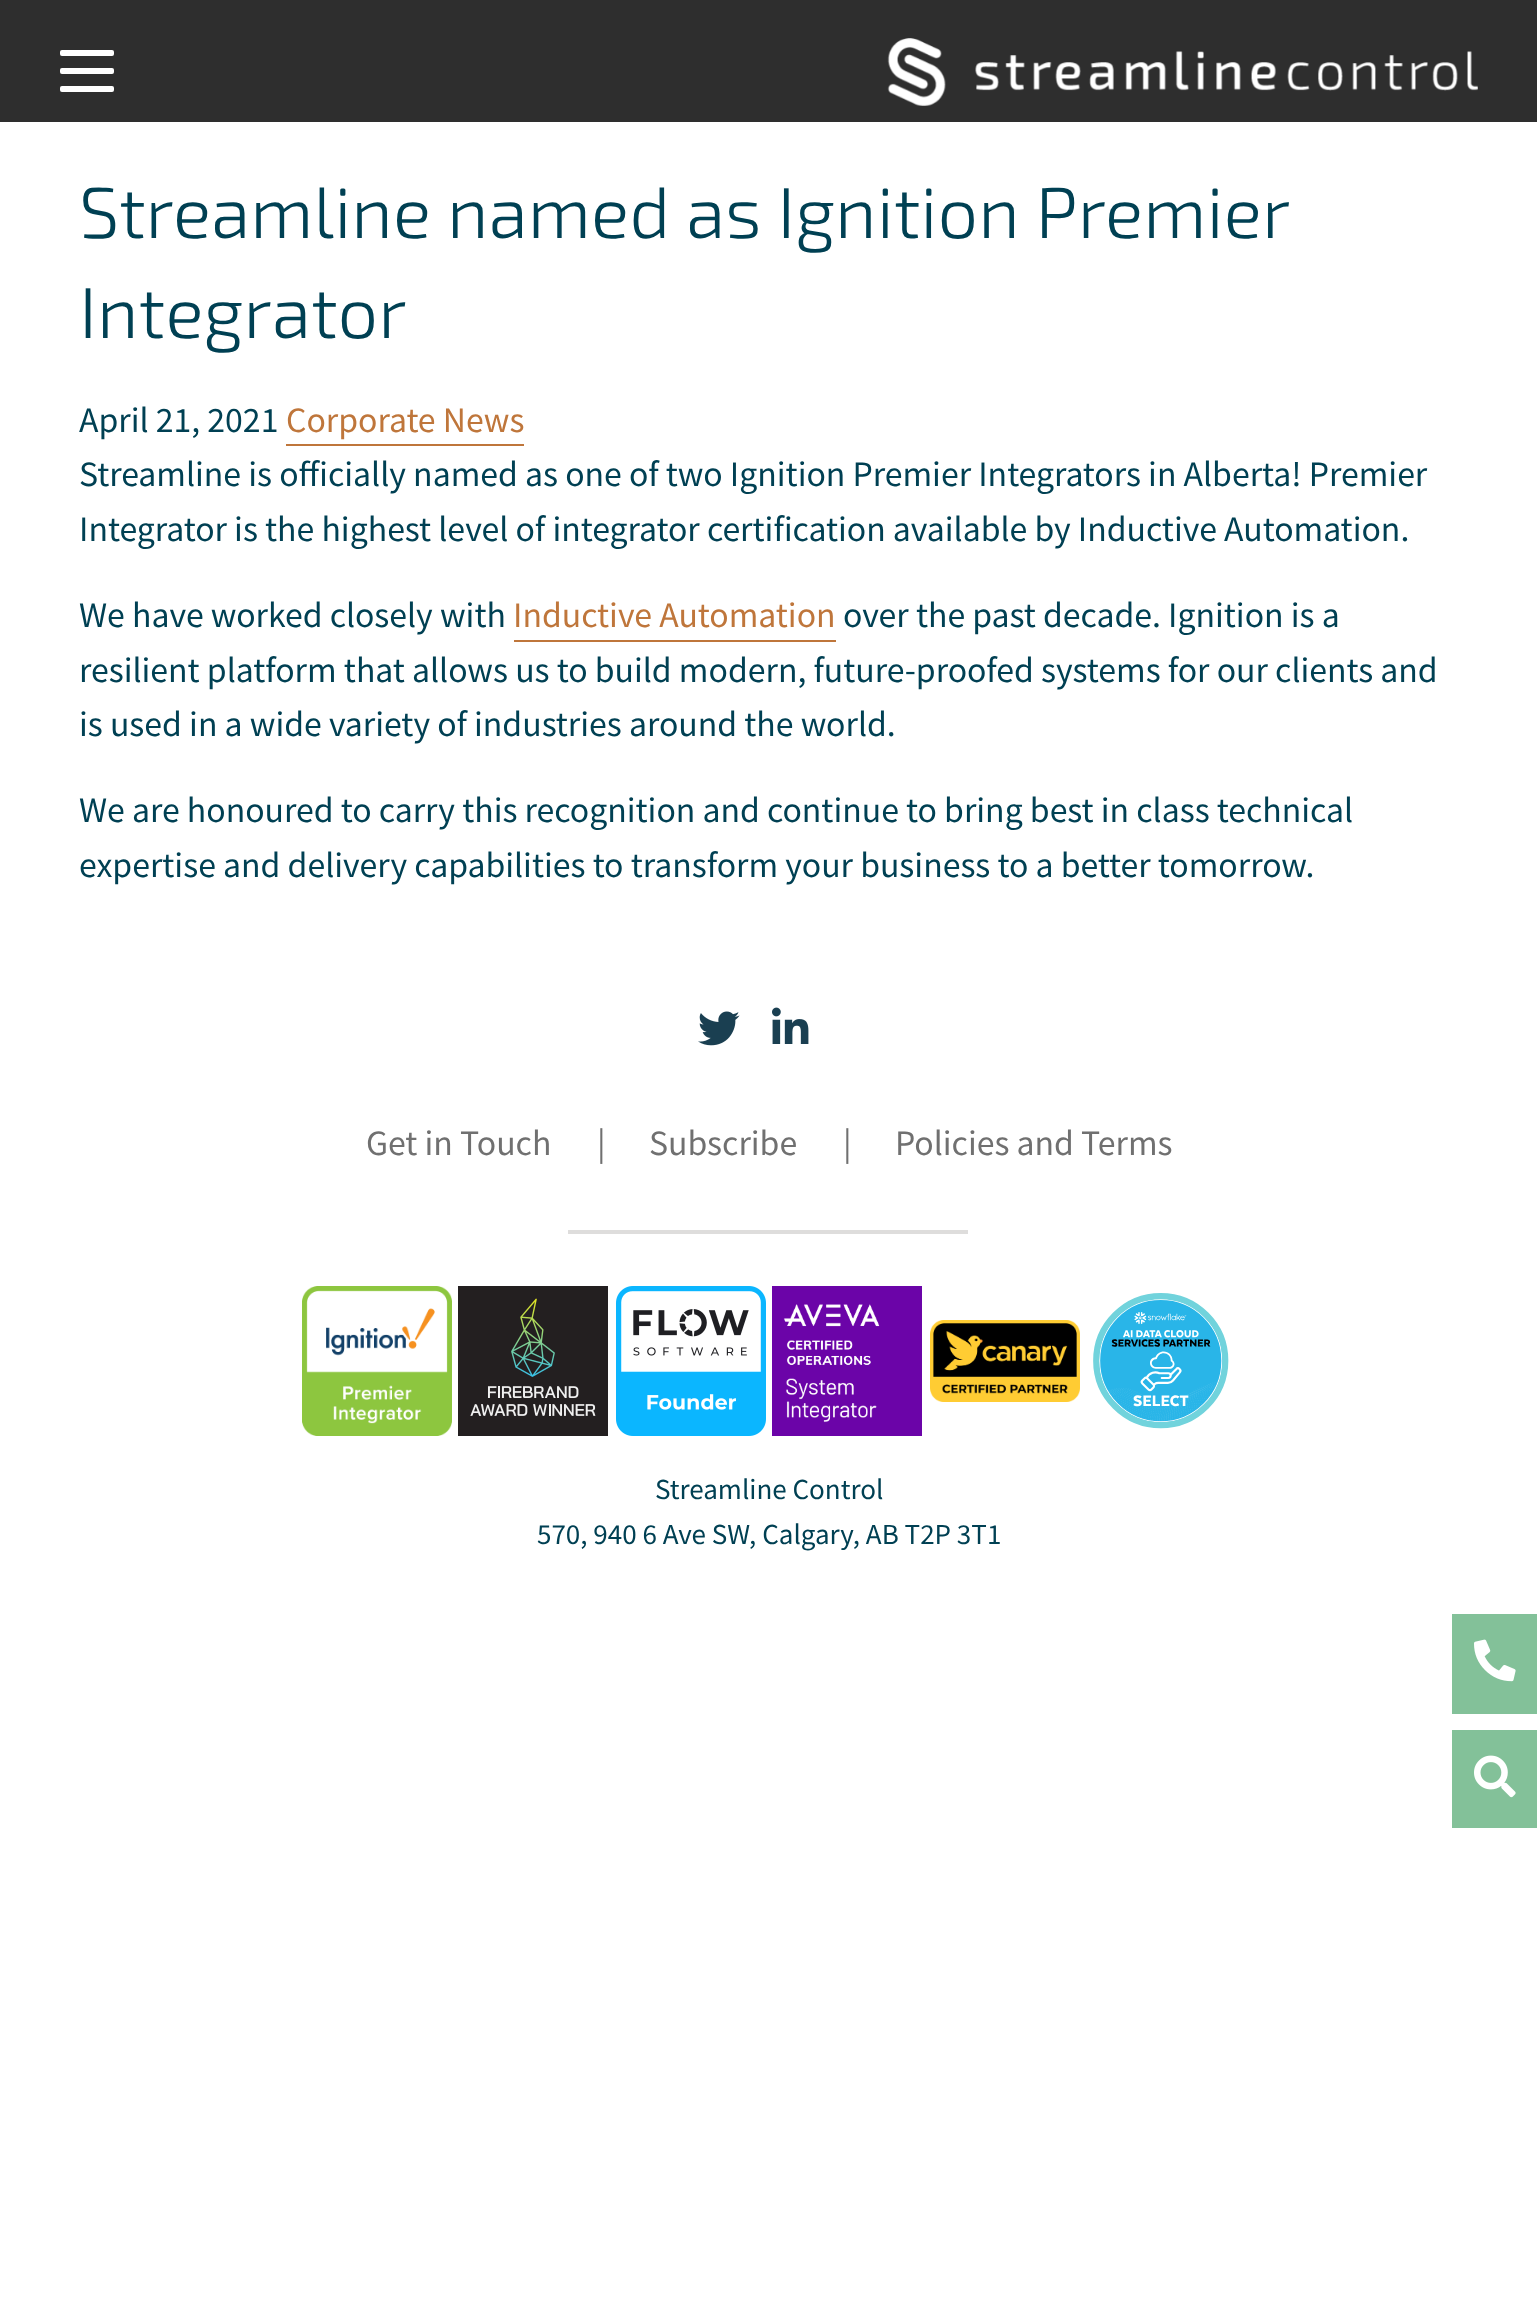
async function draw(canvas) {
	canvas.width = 1537;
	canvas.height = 2305;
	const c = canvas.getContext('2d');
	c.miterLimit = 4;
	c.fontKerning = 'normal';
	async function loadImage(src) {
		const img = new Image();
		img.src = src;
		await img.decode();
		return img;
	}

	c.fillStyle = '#fff';
	c.fillRect(0, 0, 1537, 2305);
	c.fillStyle = '#2e2e2e';
	c.fillRect(0, 0, 1537, 122);
	c.fillStyle = '#fff';
	c.beginPath();
	c.roundRect(60, 50, 54, 6, 2);
	c.fill();
	c.beginPath();
	c.roundRect(60, 68, 54, 6, 2);
	c.fill();
	c.beginPath();
	c.roundRect(60, 86, 54, 6, 2);
	c.fill();
	c.drawImage(await loadImage('img1.png'), 887, 38, 591, 68);
	c.wordSpacing = '-0.5px';
	c.font = '300 72px "Exo 2"';
	c.fillStyle = '#004053';
	c.fillText('Streamline named as Ignition Premier', 79, 238);
	c.wordSpacing = '0px';
	c.fillText('Integrator', 79, 338);
	c.font = '32px Noto Sans KR';
	c.fillText('April 21, 2021', 79, 432);
	c.fillStyle = '#bf763b';
	c.fillText('Corporate News', 286, 432);
	c.fillRect(286, 444, 238, 2);
	c.fillStyle = '#004053';
	for (const [text, x, y] of [
		['Streamline is officially named as one of two Ignition Premier Integrators in Alberta! Premier', 79, 486],
		['Integrator is the highest level of integrator certification available by Inductive Automation.', 79, 541],
		['We have worked closely with', 79, 627],
	]) {
		c.fillText(text, x, y);
	}
	c.fillStyle = '#bf763b';
	c.fillText('Inductive Automation', 513, 627);
	c.fillRect(514, 640, 322, 2);
	c.fillStyle = '#004053';
	for (const [text, x, y] of [
		['over the past decade. Ignition is a', 843, 627],
		['resilient platform that allows us to build modern, future-proofed systems for our clients and', 79, 682],
		['is used in a wide variety of industries around the world.', 79, 736],
		['We are honoured to carry this recognition and continue to bring best in class technical', 79, 822],
		['expertise and delivery capabilities to transform your business to a better tomorrow.', 79, 877],
	]) {
		c.fillText(text, x, y);
	}
	c.drawImage(await loadImage('img2.png'), 698, 1011, 42, 35);
	c.drawImage(await loadImage('img3.png'), 772, 1007, 37, 37);
	c.fillStyle = '#707070';
	for (const [text, x, y] of [
		['Get in Touch', 366, 1155],
		['|', 597, 1155],
		['Subscribe', 649, 1155],
		['|', 843, 1155],
		['Policies and Terms', 895, 1155],
	]) {
		c.fillText(text, x, y);
	}
	c.fillStyle = '#dedddc';
	c.fillRect(568, 1230, 400, 4);
	c.drawImage(await loadImage('img4.png'), 302, 1286, 150, 150);
	c.drawImage(await loadImage('img5.png'), 458, 1286, 150, 150);
	c.drawImage(await loadImage('img6.png'), 616, 1286, 150, 150);
	c.drawImage(await loadImage('img7.png'), 772, 1286, 150, 150);
	c.drawImage(await loadImage('img8.png'), 930, 1320, 150, 82);
	c.drawImage(await loadImage('img9.png'), 1093, 1293, 136, 136);
	c.font = '26px Noto Sans KR';
	c.fillStyle = '#004053';
	c.fillText('Streamline Control', 655, 1499);
	c.fillText('570, 940 6 Ave SW, Calgary, AB T2P 3T1', 537, 1544);
	c.fillStyle = '#83c199';
	c.fillRect(1452, 1614, 85, 100);
	c.drawImage(await loadImage('img10.png'), 1474, 1639, 42, 43);
	c.fillRect(1452, 1730, 85, 98);
	c.drawImage(await loadImage('img11.png'), 1474, 1755, 42, 43);
}

draw(document.querySelector('canvas'));
